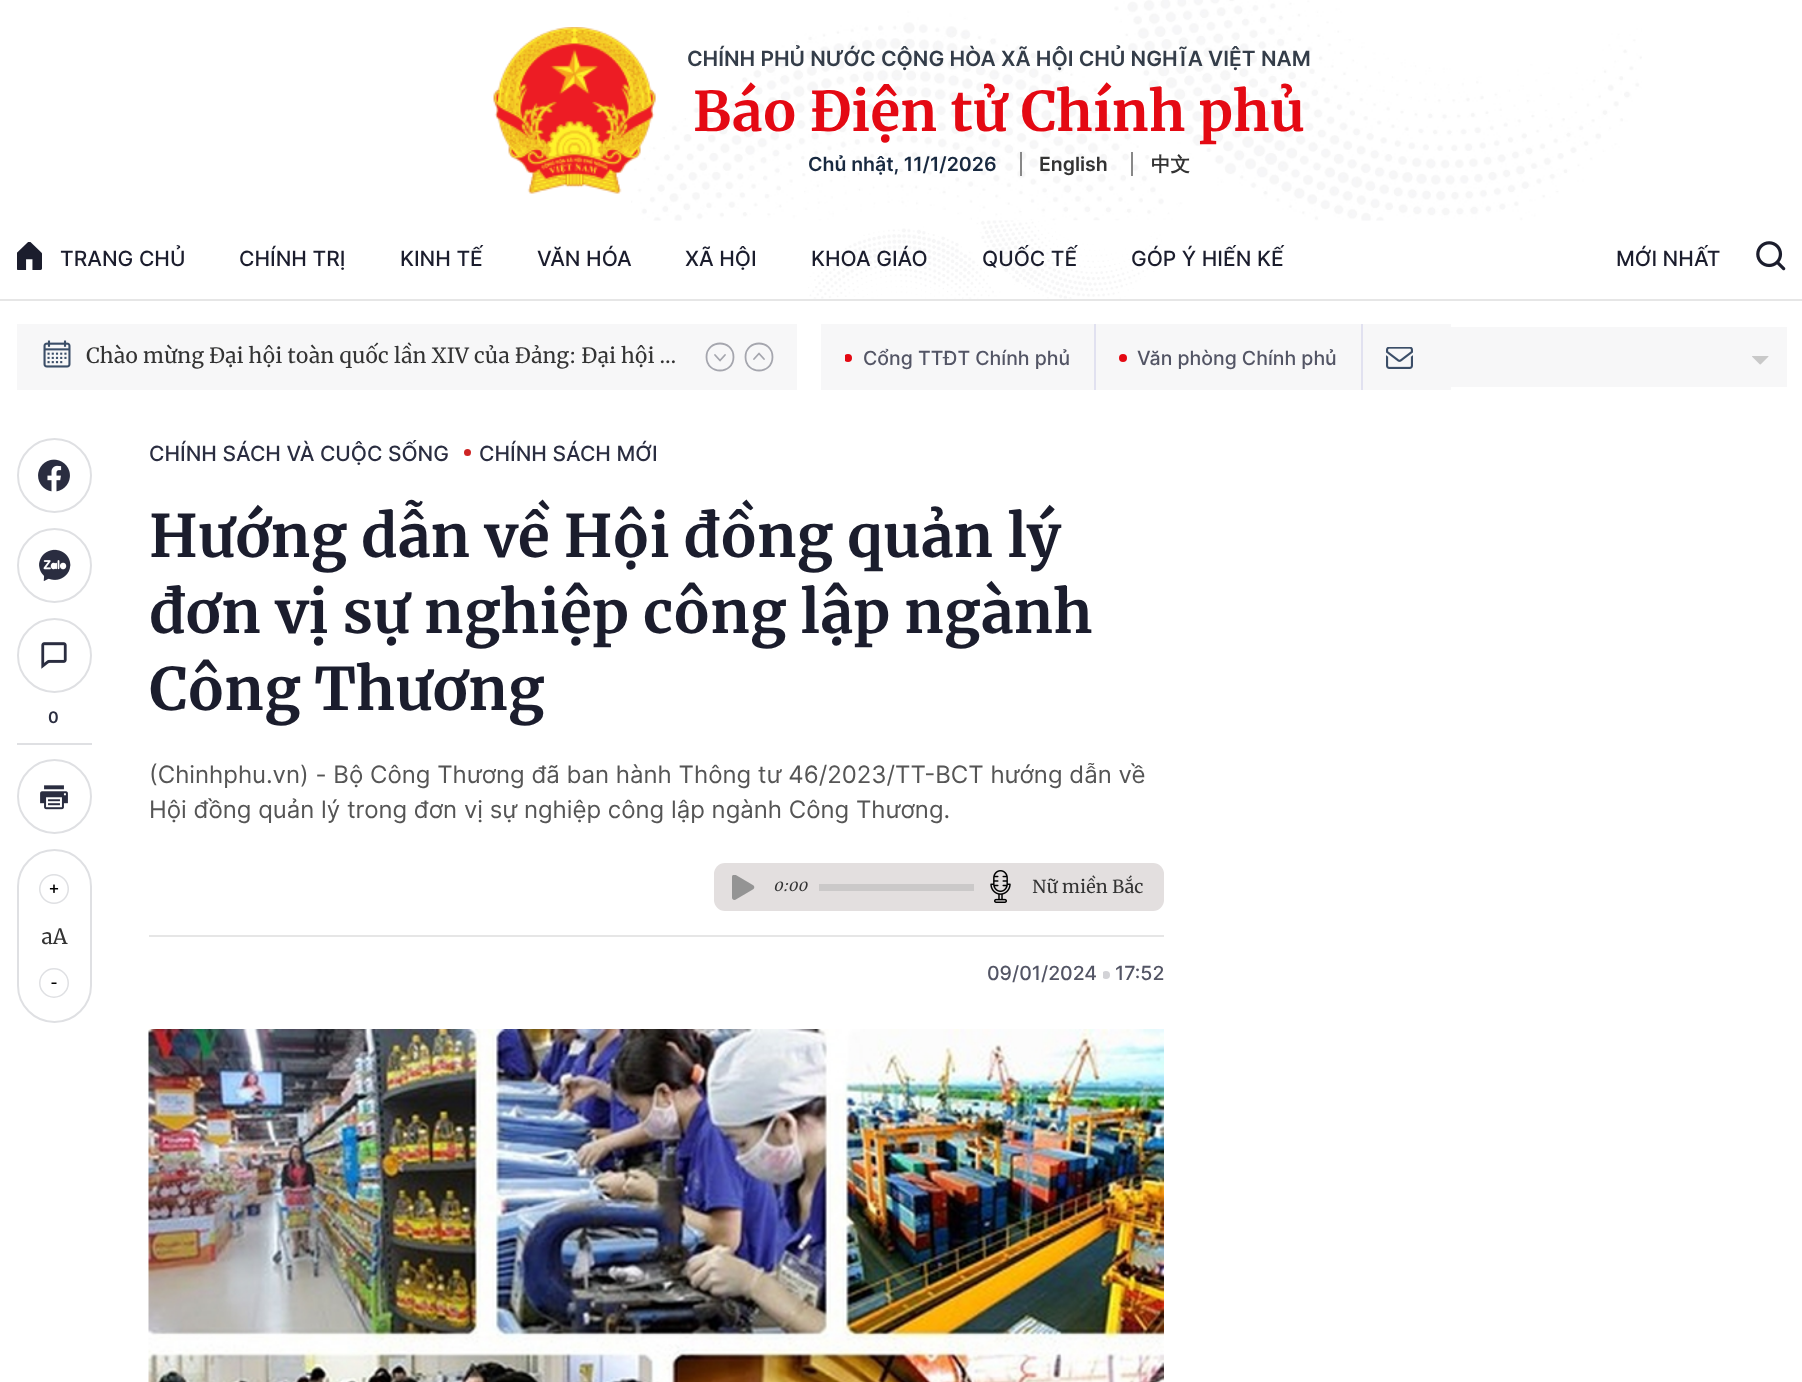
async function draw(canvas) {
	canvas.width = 1802;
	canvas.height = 1382;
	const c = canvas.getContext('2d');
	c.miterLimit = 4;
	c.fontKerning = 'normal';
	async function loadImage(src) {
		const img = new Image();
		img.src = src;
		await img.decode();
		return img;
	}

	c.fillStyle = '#fff';
	c.fillRect(0, 0, 1802, 1382);
	c.fillStyle = '#e6e6e6';
	c.fillRect(0, 299, 1802, 2);
	c.drawImage(await loadImage('img1.png'), 631, 0, 1011, 221);
	c.drawImage(await loadImage('img2.png'), 493, 27, 163, 167);
	c.font = '600 21px Inter';
	c.fillStyle = '#343d49';
	c.fillText('CHÍNH PHỦ NƯỚC CỘNG HÒA XÃ HỘI CHỦ NGHĨA VIỆT NAM', 687, 66);
	c.font = 'bold 54.6px Merriweather';
	c.fillStyle = '#e40913';
	c.fillText('Báo Điện tử Chính phủ', 693, 131);
	c.font = '600 19.5px Inter';
	c.fillStyle = '#182940';
	c.fillText('Chủ nhật, 11/1/2026', 808, 171);
	c.fillStyle = '#333';
	c.fillText('English', 1039, 171);
	c.fillStyle = '#888';
	c.fillRect(1020, 152, 2, 24);
	c.font = 'bold 19.5px WenQuanYi Zen Hei';
	c.fillStyle = '#333';
	c.fillText('中文', 1151, 171);
	c.fillStyle = '#888';
	c.fillRect(1131, 152, 2, 24);
	c.drawImage(await loadImage('img3.png'), 808, 220, 354, 79);
	c.drawImage(await loadImage('img4.png'), 17, 242, 25, 28);
	c.font = '500 21px Inter';
	c.fillStyle = '#1b1d2d';
	for (const [text, x, y] of [
		['TRANG CHỦ', 60, 266],
		['CHÍNH TRỊ', 239, 266],
		['KINH TẾ', 400, 266],
		['VĂN HÓA', 537, 266],
		['XÃ HỘI', 685, 266],
		['KHOA GIÁO', 811, 266],
		['QUỐC TẾ', 982, 266],
		['GÓP Ý HIẾN KẾ', 1131, 266],
		['MỚI NHẤT', 1616, 266],
	]) {
		c.fillText(text, x, y);
	}
	c.drawImage(await loadImage('img5.png'), 1756, 241, 30, 30);
	c.fillStyle = '#f7f7f8';
	c.fillRect(17, 324, 780, 66);
	c.drawImage(await loadImage('img6.png'), 43, 340, 28, 28);
	c.font = '21px Merriweather';
	c.fillStyle = '#333';
	c.fillText('Chào mừng Đại hội toàn quốc lần XIV của Đảng: Đại hội …', 86, 363);
	c.beginPath();
	c.moveTo(733.5, 357);
	c.bezierCurveTo(733.5, 339, 706.5, 339, 706.5, 357);
	c.bezierCurveTo(706.5, 375, 733.5, 375, 733.5, 357);
	c.closePath();
	c.strokeStyle = '#a5a6ae';
	c.lineWidth = 1.8;
	c.stroke();
	c.beginPath();
	c.moveTo(715, 355);
	c.lineTo(720, 360.5);
	c.lineTo(725, 355);
	c.lineCap = 'round';
	c.lineJoin = 'round';
	c.stroke();
	c.beginPath();
	c.moveTo(772.5, 357);
	c.bezierCurveTo(772.5, 375, 745.5, 375, 745.5, 357);
	c.bezierCurveTo(745.5, 339, 772.5, 339, 772.5, 357);
	c.closePath();
	c.lineCap = 'butt';
	c.lineJoin = 'miter';
	c.stroke();
	c.beginPath();
	c.moveTo(754, 359);
	c.lineTo(759, 353.5);
	c.lineTo(764, 359);
	c.lineCap = 'round';
	c.lineJoin = 'round';
	c.stroke();
	c.fillStyle = '#f7f7f8';
	c.fillRect(821, 324, 630, 66);
	c.fillStyle = '#e1e1f0';
	c.fillRect(1094, 324, 2, 66);
	c.save();
	c.beginPath();
	c.rect(845, 354, 7, 8);
	c.clip();
	c.fillStyle = '#e40913';
	c.beginPath();
	c.arc(848, 358, 4, 0, 2 * Math.PI);
	c.fill();
	c.restore();
	c.font = '500 19.5px Inter';
	c.fillStyle = '#535565';
	c.fillText('Cổng TTĐT Chính phủ', 863, 365);
	c.fillStyle = '#e1e1f0';
	c.fillRect(1361, 324, 2, 66);
	c.fillStyle = '#e40913';
	c.beginPath();
	c.arc(1123, 358, 4, 0, 2 * Math.PI);
	c.fill();
	c.fillStyle = '#535565';
	c.fillText('Văn phòng Chính phủ', 1137, 365);
	c.drawImage(await loadImage('img7.png'), 1386, 347, 27, 22);
	c.fillStyle = '#f7f7f8';
	c.fillRect(1451, 327, 336, 60);
	c.drawImage(await loadImage('img8.png'), 1752, 356, 17, 9);
	c.beginPath();
	c.arc(54.5, 475.5, 36.5, 0, 2 * Math.PI);
	c.strokeStyle = '#dfe0e3';
	c.lineWidth = 2;
	c.stroke();
	c.drawImage(await loadImage('img9.png'), 38, 459, 32, 33);
	c.beginPath();
	c.arc(54.5, 565.5, 36.5, 0, 2 * Math.PI);
	c.stroke();
	c.drawImage(await loadImage('img10.png'), 39, 549, 32, 32);
	c.beginPath();
	c.arc(54.5, 655.5, 36.5, 0, 2 * Math.PI);
	c.stroke();
	c.drawImage(await loadImage('img11.png'), 41, 642, 26, 27);
	c.fillStyle = '#dfe0e3';
	c.fillRect(17, 743, 75, 2);
	c.font = '600 16px Inter';
	c.fillStyle = '#2a2d40';
	c.fillText('0', 48, 723);
	c.beginPath();
	c.arc(54.5, 796.5, 36.5, 0, 2 * Math.PI);
	c.stroke();
	c.drawImage(await loadImage('img12.png'), 40, 785, 28, 25);
	c.beginPath();
	c.roundRect(18, 850, 73, 172, 36.5);
	c.lineJoin = 'miter';
	c.stroke();
	c.drawImage(await loadImage('img13.png'), 39, 874, 30, 30);
	c.font = '21px Merriweather';
	c.fillStyle = '#333';
	c.fillText('aA', 41, 944);
	c.fillStyle = '#000';
	c.beginPath();
	c.moveTo(56.5, 982.5);
	c.lineTo(56.5, 984);
	c.lineTo(51.5, 984);
	c.lineTo(51.5, 982.5);
	c.closePath();
	c.fill();
	c.beginPath();
	c.arc(54, 983, 14.25, 0, 2 * Math.PI);
	c.lineWidth = 1.5;
	c.stroke();
	c.font = '500 21px Inter';
	c.fillStyle = '#2a2d40';
	c.fillText('CHÍNH SÁCH VÀ CUỘC SỐNG', 149, 461);
	c.fillStyle = '#ce2424';
	c.beginPath();
	c.arc(467.5, 452.5, 3.5, 0, 2 * Math.PI);
	c.fill();
	c.fillStyle = '#2a2d40';
	c.fillText('CHÍNH SÁCH MỚI', 479, 461);
	c.font = 'bold 58.5px Merriweather';
	c.fillStyle = '#1b1d2d';
	for (const [text, x, y] of [
		['Hướng dẫn về Hội đồng quản lý', 149, 557],
		['đơn vị sự nghiệp công lập ngành', 149, 633],
		['Công Thương', 149, 710],
	]) {
		c.fillText(text, x, y);
	}
	c.font = '24px Inter';
	c.fillStyle = '#555';
	c.fillText('(Chinhphu.vn) - Bộ Công Thương đã ban hành Thông tư 46/2023/TT-BCT hướng dẫn về', 149, 783);
	c.fillText('Hội đồng quản lý trong đơn vị sự nghiệp công lập ngành Công Thương.', 149, 818);
	c.fillStyle = '#e3dfdf';
	c.beginPath();
	c.roundRect(714, 863, 450, 48, 11);
	c.fill();
	c.drawImage(await loadImage('img14.png'), 732, 875, 23, 25);
	c.font = 'italic 15px Merriweather';
	c.fillStyle = '#333';
	c.fillText('0:00', 773, 891);
	c.fillStyle = '#cbc9c9';
	c.fillRect(819, 884, 155, 7);
	c.drawImage(await loadImage('img15.png'), 990, 870, 21, 33);
	c.font = '18px Merriweather';
	c.fillStyle = '#333';
	c.fillText('Nữ miền Bắc', 1032, 893);
	c.fillStyle = '#e6e6e6';
	c.fillRect(149, 935, 1015, 2);
	c.font = '500 19.5px Inter';
	c.fillStyle = '#535565';
	c.fillText('09/01/2024', 987, 980);
	c.save();
	c.beginPath();
	c.rect(1103, 971, 7, 9);
	c.clip();
	c.fillStyle = '#d3d3d7';
	c.beginPath();
	c.arc(1106, 975, 4, 0, 2 * Math.PI);
	c.fill();
	c.restore();
	c.fillText('17:52', 1115, 980);
	c.drawImage(await loadImage('img16.png'), 148, 1029, 1016, 353);
}

draw(document.querySelector('canvas'));
